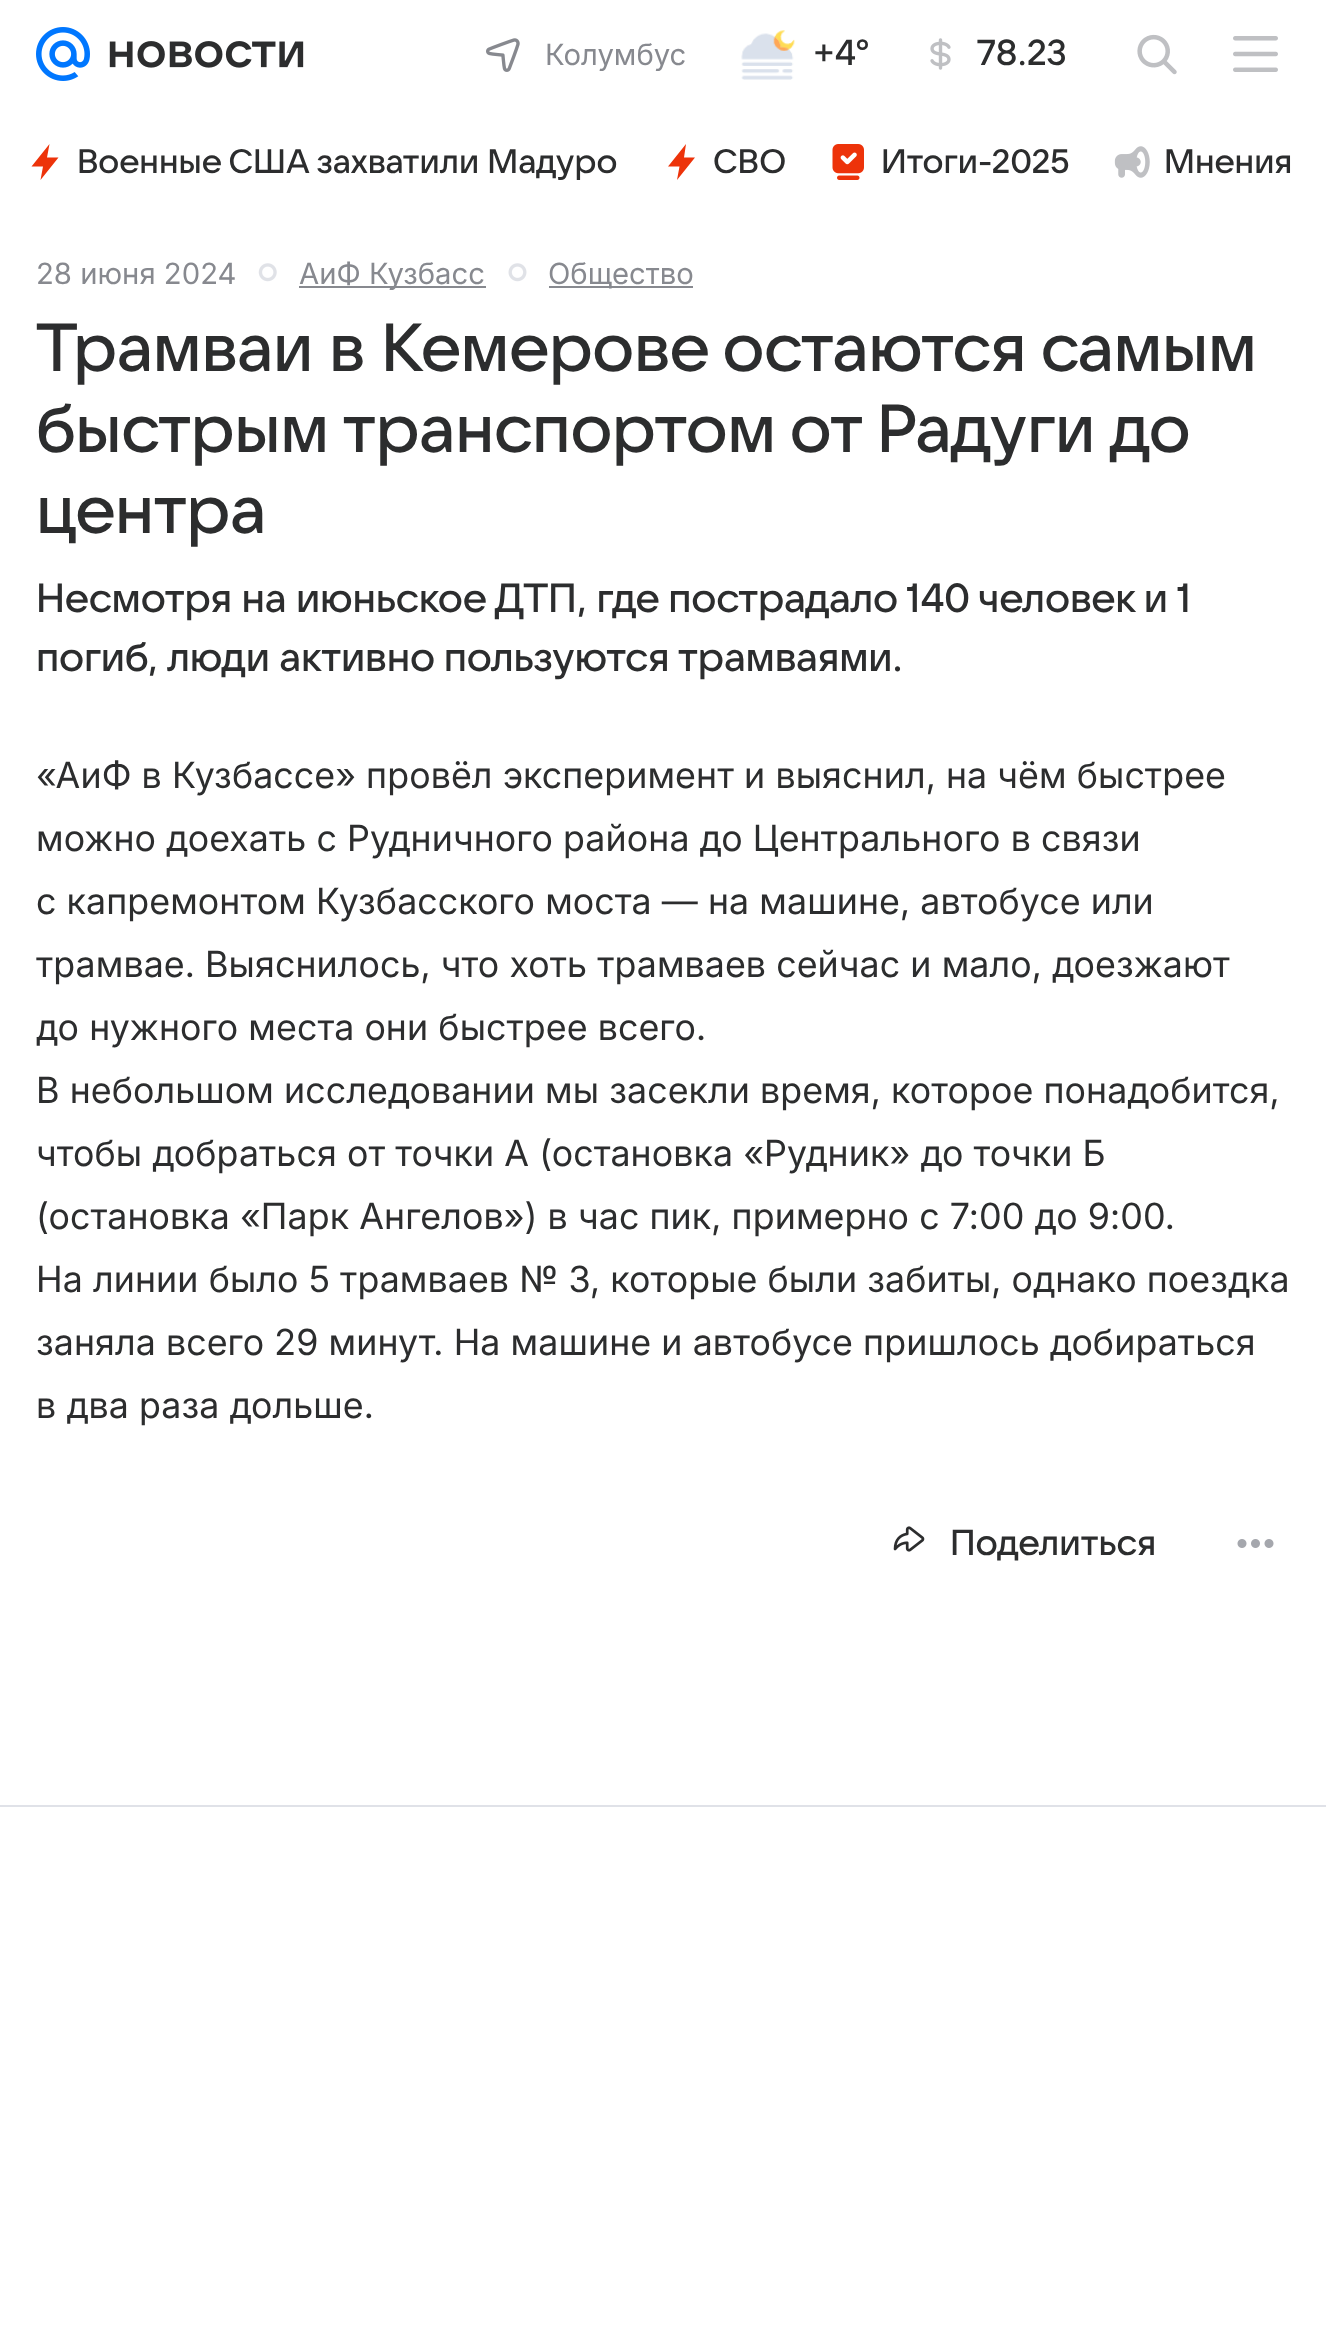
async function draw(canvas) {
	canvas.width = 1326;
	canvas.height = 2344;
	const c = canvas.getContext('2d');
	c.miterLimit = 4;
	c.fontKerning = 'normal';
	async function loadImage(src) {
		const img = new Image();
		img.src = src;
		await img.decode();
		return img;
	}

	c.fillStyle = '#fff';
	c.fillRect(0, 0, 1326, 2344);
	c.drawImage(await loadImage('img1.png'), 36, 27, 54, 54);
	c.drawImage(await loadImage('img2.png'), 109, 41, 195, 27);
	c.drawImage(await loadImage('img3.png'), 486, 38, 34, 34);
	c.font = '29.25px "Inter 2"';
	c.fillStyle = '#87898f';
	c.fillText('Колумбус', 545, 65);
	c.drawImage(await loadImage('img4.png'), 741, 30, 54, 50);
	c.font = '500 36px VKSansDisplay';
	c.fillStyle = '#2c2d2e';
	c.fillText('+4°', 813, 65);
	c.drawImage(await loadImage('img5.png'), 930, 38, 21, 32);
	c.fillText('78.23', 977, 65);
	c.drawImage(await loadImage('img6.png'), 1137, 34, 40, 41);
	c.drawImage(await loadImage('img7.png'), 1233, 36, 45, 36);
	c.fillStyle = '#ed330a';
	c.beginPath();
	c.moveTo(49.5, 144);
	c.lineTo(47, 157.5);
	c.lineTo(58.5, 157.5);
	c.lineTo(40.5, 180);
	c.lineTo(43, 166.5);
	c.lineTo(31.5, 166.5);
	c.closePath();
	c.fill('evenodd');
	c.font = '500 33.75px VKSansDisplay';
	c.fillStyle = '#2c2d2e';
	c.fillText('Военные США захватили Мадуро', 77, 173);
	c.fillStyle = '#ed330a';
	c.beginPath();
	c.moveTo(686, 144);
	c.lineTo(684, 157.5);
	c.lineTo(695, 157.5);
	c.lineTo(677, 180);
	c.lineTo(679.5, 166.5);
	c.lineTo(668, 166.5);
	c.closePath();
	c.fill('evenodd');
	c.fillStyle = '#2c2d2e';
	c.fillText('СВО', 713, 173);
	c.drawImage(await loadImage('img8.png'), 832, 144, 32, 36);
	c.fillText('Итоги-2025', 881, 173);
	c.drawImage(await loadImage('img9.png'), 1114, 146, 36, 32);
	c.fillText('Мнения', 1164, 173);
	c.font = '29.25px "Inter 2"';
	c.fillStyle = '#87898f';
	c.fillText('28 июня 2024', 36, 284);
	c.drawImage(await loadImage('img10.png'), 258, 263, 19, 19);
	c.fillRect(299, 286, 187, 2);
	c.fillText('АиФ Кузбасc', 299, 284);
	c.drawImage(await loadImage('img11.png'), 508, 263, 19, 19);
	c.fillRect(549, 286, 144, 2);
	c.fillText('Общество', 548, 284);
	c.letterSpacing = '-0.35px';
	c.font = '500 67.5px VKSansDisplay';
	c.fillStyle = '#2c2d2e';
	c.fillText('Трамваи в Кемерове остаются самым', 36, 371);
	c.wordSpacing = '-0.5px';
	c.fillText('быстрым транспортом от Радуги до', 36, 452);
	c.wordSpacing = '0px';
	c.fillText('центра', 36, 533);
	c.letterSpacing = '-0.2px';
	c.font = '500 40.5px VKSansDisplay';
	c.fillText('Несмотря на июньское ДТП, где пострадало 140 человек и 1', 36, 612);
	c.fillText('погиб, люди активно пользуются трамваями.', 36, 671);
	c.letterSpacing = '0.1px';
	c.font = '36px Inter';
	for (const [text, x, y] of [
		['«АиФ в Кузбассе» провёл эксперимент и выяснил, на чём быстрее', 36, 788],
		['можно доехать с Рудничного района до Центрального в связи', 36, 851],
		['с капремонтом Кузбасского моста — на машине, автобусе или', 36, 914],
		['трамвае. Выяснилось, что хоть трамваев сейчас и мало, доезжают', 36, 977],
		['до нужного места они быстрее всего.', 36, 1040],
		['В небольшом исследовании мы засекли время, которое понадобится,', 36, 1103],
		['чтобы добраться от точки А (остановка «Рудник» до точки Б', 36, 1166],
		['(остановка «Парк Ангелов») в час пик, примерно с 7:00 до 9:00.', 36, 1229],
		['На линии было 5 трамваев № 3, которые были забиты, однако поездка', 36, 1292],
		['заняла всего 29 минут. На машине и автобусе пришлось добираться', 36, 1355],
		['в два раза дольше.', 36, 1418],
	]) {
		c.fillText(text, x, y);
	}
	c.drawImage(await loadImage('img12.png'), 893, 1526, 32, 26);
	c.letterSpacing = '0px';
	c.font = '500 36px VKSansDisplay';
	c.fillText('Поделиться', 950, 1555);
	c.drawImage(await loadImage('img13.png'), 1237, 1539, 37, 9);
	c.fillStyle = '#e0e2e8';
	c.fillRect(0, 1805, 1326, 2);
}

draw(document.querySelector('canvas'));
